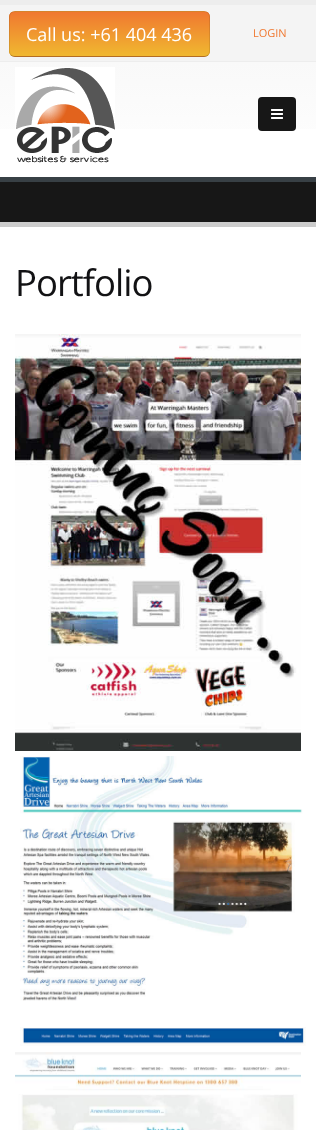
async function draw(canvas) {
	canvas.width = 316;
	canvas.height = 1130;
	const c = canvas.getContext('2d');
	c.miterLimit = 4;
	c.fontKerning = 'normal';
	async function loadImage(src) {
		const img = new Image();
		img.src = src;
		await img.decode();
		return img;
	}
	let gradient;

	c.fillStyle = '#fff';
	c.fillRect(0, 0, 316, 1130);
	gradient = c.createLinearGradient(158, 5, 158, 177);
	gradient.addColorStop(0, '#f6f6f6');
	gradient.addColorStop(1, '#fff');
	c.fillStyle = gradient;
	c.fillRect(0, 62, 316, 67);
	c.fillStyle = '#ededed';
	c.fillRect(0, 0, 316, 5);
	c.fillStyle = '#f4f4f4';
	c.fillRect(0, 5, 316, 56);
	c.fillStyle = '#f09230';
	c.beginPath();
	c.roundRect(9, 11, 201, 46, 6);
	c.fill();
	c.save();
	c.beginPath();
	c.roundRect(9, 11, 201, 46, 6);
	c.clip();
	gradient = c.createLinearGradient(110, 12, 110, 56);
	gradient.addColorStop(0, '#f07830');
	gradient.addColorStop(1, '#f0b830');
	c.fillStyle = gradient;
	c.fillRect(9, 12, 201, 44);
	c.restore();
	c.beginPath();
	c.moveTo(208, 55);
	c.bezierCurveTo(207, 56, 205.5, 56.5, 204, 56.5);
	c.lineTo(15, 56.5);
	c.bezierCurveTo(13.5, 56.5, 12, 56, 11, 55);
	c.strokeStyle = '#00000040';
	c.stroke();
	c.beginPath();
	c.moveTo(11, 55);
	c.bezierCurveTo(10, 54, 9.5, 52.5, 9.5, 51);
	c.lineTo(9.5, 17);
	c.bezierCurveTo(9.5, 15.5, 10, 14, 11, 13);
	c.bezierCurveTo(12, 12, 13.5, 11.5, 15, 11.5);
	c.lineTo(204, 11.5);
	c.bezierCurveTo(205.5, 11.5, 207, 12, 208, 13);
	c.bezierCurveTo(209, 14, 209.5, 15.5, 209.5, 17);
	c.lineTo(209.5, 51);
	c.bezierCurveTo(209.5, 52.5, 209, 54, 208, 55);
	c.strokeStyle = '#0000001a';
	c.stroke();
	c.font = '18px Open Sans';
	c.fillStyle = '#fff';
	c.fillText('Call us: +61 404 436', 26, 41);
	c.fillStyle = '#ededed';
	c.fillRect(0, 61, 316, 1);
	c.font = '11px Open Sans';
	c.fillStyle = '#f07830';
	c.fillText('LOGIN', 253, 37);
	c.drawImage(await loadImage('img1.png'), 15, 67, 100, 96);
	c.fillStyle = '#171717';
	c.beginPath();
	c.roundRect(258, 97, 38, 34, 4);
	c.fill();
	c.drawImage(await loadImage('img2.png'), 271, 109, 12, 10);
	for (const [x, y, w, h, color] of [
		[0, 182, 316, 40, '#171717'],
		[0, 177, 316, 5, '#384045'],
		[0, 222, 316, 5, '#ccc'],
	]) {
		c.fillStyle = color;
		c.fillRect(x, y, w, h);
	}
	c.letterSpacing = '-1px';
	c.font = '36.5px Open Sans';
	c.fillStyle = '#121214';
	c.fillText('Portfolio', 15, 296);
	c.drawImage(await loadImage('img3.png'), 15, 334, 286, 417);
	c.drawImage(await loadImage('img4.png'), 20, 756, 286, 290);
	c.drawImage(await loadImage('img5.png'), 15, 1052, 286, 78);
}

draw(document.querySelector('canvas'));
